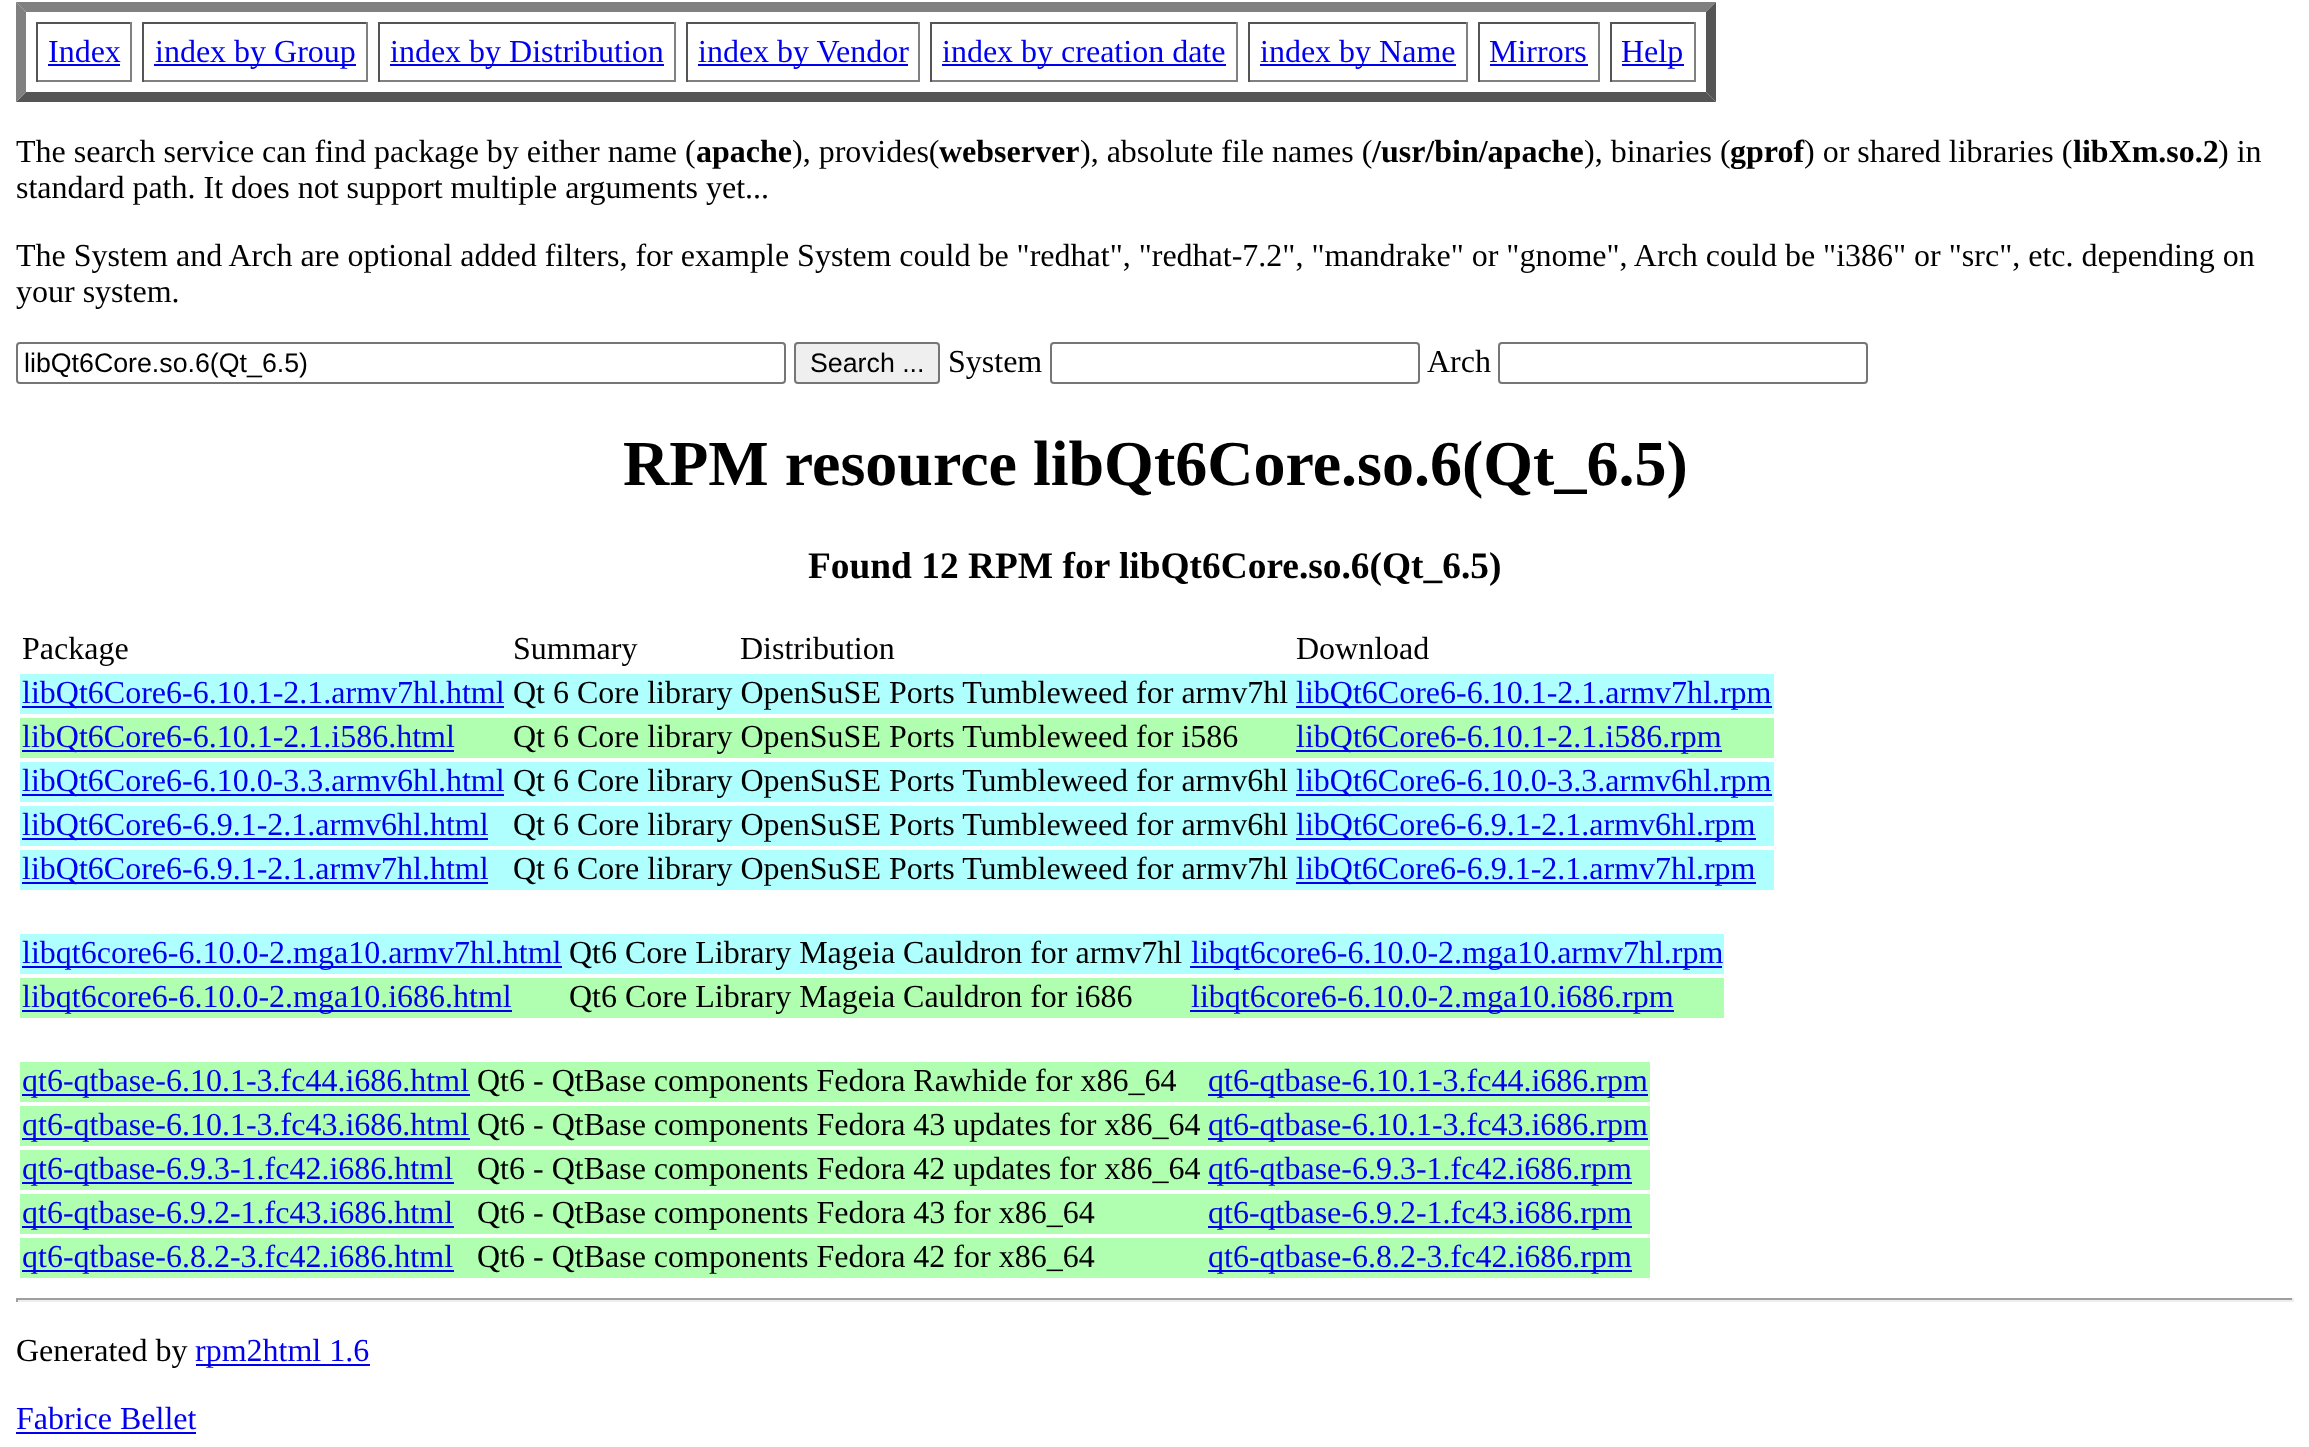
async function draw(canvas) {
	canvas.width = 2309;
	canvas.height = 1447;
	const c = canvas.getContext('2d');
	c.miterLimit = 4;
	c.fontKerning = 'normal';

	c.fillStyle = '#fff';
	c.fillRect(0, 0, 2309, 1447);
	c.fillStyle = '#808080';
	c.beginPath();
	c.moveTo(16, 2);
	c.lineTo(1716, 2);
	c.lineTo(1706, 12);
	c.lineTo(26, 12);
	c.closePath();
	c.fill();
	c.fillStyle = '#555';
	c.beginPath();
	c.moveTo(1716, 2);
	c.lineTo(1716, 102);
	c.lineTo(1706, 92);
	c.lineTo(1706, 12);
	c.closePath();
	c.fill();
	c.beginPath();
	c.moveTo(1716, 102);
	c.lineTo(16, 102);
	c.lineTo(26, 92);
	c.lineTo(1706, 92);
	c.closePath();
	c.fill();
	c.fillStyle = '#808080';
	c.beginPath();
	c.moveTo(16, 102);
	c.lineTo(16, 2);
	c.lineTo(26, 12);
	c.lineTo(26, 92);
	c.closePath();
	c.fill();
	for (const [x, y, w, h, color] of [
		[36, 22, 96, 2, '#555'],
		[130, 22, 2, 60, '#808080'],
		[36, 80, 96, 2, '#808080'],
		[36, 22, 2, 60, '#555'],
	]) {
		c.fillStyle = color;
		c.fillRect(x, y, w, h);
	}
	c.font = '32px Liberation Serif';
	c.fillStyle = '#00e';
	c.fillText('Index', 48, 62);
	for (const [x, y, w, h, color] of [
		[48, 64, 72, 2, '#00e'],
		[142, 22, 226, 2, '#555'],
		[366, 22, 2, 60, '#808080'],
		[142, 80, 226, 2, '#808080'],
		[142, 22, 2, 60, '#555'],
		[154, 64, 202, 2, '#00e'],
	]) {
		c.fillStyle = color;
		c.fillRect(x, y, w, h);
	}
	c.fillText('index by Group', 155, 62);
	for (const [x, y, w, h, color] of [
		[378, 22, 298, 2, '#555'],
		[674, 22, 2, 60, '#808080'],
		[378, 80, 298, 2, '#808080'],
		[378, 22, 2, 60, '#555'],
		[390, 64, 274, 2, '#00e'],
	]) {
		c.fillStyle = color;
		c.fillRect(x, y, w, h);
	}
	c.fillText('index by Distribution', 390, 62);
	for (const [x, y, w, h, color] of [
		[686, 22, 234, 2, '#555'],
		[918, 22, 2, 60, '#808080'],
		[686, 80, 234, 2, '#808080'],
		[686, 22, 2, 60, '#555'],
		[698, 64, 210, 2, '#00e'],
	]) {
		c.fillStyle = color;
		c.fillRect(x, y, w, h);
	}
	c.fillText('index by Vendor', 698, 62);
	for (const [x, y, w, h, color] of [
		[930, 22, 308, 2, '#555'],
		[1236, 22, 2, 60, '#808080'],
		[930, 80, 308, 2, '#808080'],
		[930, 22, 2, 60, '#555'],
		[942, 64, 284, 2, '#00e'],
	]) {
		c.fillStyle = color;
		c.fillRect(x, y, w, h);
	}
	c.fillText('index by creation date', 942, 62);
	for (const [x, y, w, h, color] of [
		[1248, 22, 220, 2, '#555'],
		[1466, 22, 2, 60, '#808080'],
		[1248, 80, 220, 2, '#808080'],
		[1248, 22, 2, 60, '#555'],
		[1260, 64, 196, 2, '#00e'],
	]) {
		c.fillStyle = color;
		c.fillRect(x, y, w, h);
	}
	c.fillText('index by Name', 1260, 62);
	for (const [x, y, w, h, color] of [
		[1478, 22, 122, 2, '#555'],
		[1598, 22, 2, 60, '#808080'],
		[1478, 80, 122, 2, '#808080'],
		[1478, 22, 2, 60, '#555'],
	]) {
		c.fillStyle = color;
		c.fillRect(x, y, w, h);
	}
	c.fillStyle = '#00e';
	c.fillText('Mirrors', 1489, 62);
	for (const [x, y, w, h, color] of [
		[1490, 64, 98, 2, '#00e'],
		[1610, 22, 86, 2, '#555'],
		[1694, 22, 2, 60, '#808080'],
		[1610, 80, 86, 2, '#808080'],
		[1610, 22, 2, 60, '#555'],
		[1622, 64, 62, 2, '#00e'],
	]) {
		c.fillStyle = color;
		c.fillRect(x, y, w, h);
	}
	c.fillText('Help', 1621, 62);
	c.fillStyle = '#000';
	c.fillText('The search service can find package by either name (', 16, 162);
	c.font = 'bold 32px Liberation Serif';
	c.fillText('apache', 696, 162);
	c.font = '32px Liberation Serif';
	c.fillText('), provides(', 792, 162);
	c.font = 'bold 32px Liberation Serif';
	c.fillText('webserver', 939, 162);
	c.font = '32px Liberation Serif';
	c.fillText('), absolute file names (', 1080, 162);
	c.font = 'bold 32px Liberation Serif';
	c.fillText('/usr/bin/apache', 1372, 162);
	c.font = '32px Liberation Serif';
	c.fillText('), binaries (', 1584, 162);
	c.font = 'bold 32px Liberation Serif';
	c.fillText('gprof', 1730, 162);
	c.font = '32px Liberation Serif';
	c.fillText(') or shared libraries (', 1804, 162);
	c.font = 'bold 32px Liberation Serif';
	c.fillText('libXm.so.2', 2073, 162);
	c.font = '32px Liberation Serif';
	for (const [text, x, y] of [
		[') in', 2218, 162],
		['standard path. It does not support multiple arguments yet...', 16, 198],
		['The System and Arch are optional added filters, for example System could be "redhat", "redhat-7.2", "mandrake" or "gnome", Arch could be "i386" or "src", etc. depending on', 16, 266],
		['your system.', 16, 302],
	]) {
		c.fillText(text, x, y);
	}
	c.beginPath();
	c.roundRect(17, 343, 768, 40, 3);
	c.strokeStyle = '#767676';
	c.lineWidth = 2;
	c.stroke();
	c.font = '26.75px Liberation Sans';
	c.fillText('libQt6Core.so.6(Qt_6.5)', 24, 372);
	c.fillStyle = '#efefef';
	c.beginPath();
	c.roundRect(795, 343, 144, 40, 3);
	c.fill();
	c.stroke();
	c.fillStyle = '#000';
	c.fillText('Search ...', 810, 372);
	c.font = '32px Liberation Serif';
	c.fillText('System', 948, 372);
	c.beginPath();
	c.roundRect(1051, 343, 368, 40, 3);
	c.stroke();
	c.fillText('Arch', 1427, 372);
	c.beginPath();
	c.roundRect(1499, 343, 368, 40, 3);
	c.stroke();
	c.font = 'bold 64px Liberation Serif';
	c.fillText('RPM resource libQt6Core.so.6(Qt_6.5)', 623, 485);
	c.font = 'bold 37.4px Liberation Serif';
	c.fillText('Found 12 RPM for libQt6Core.so.6(Qt_6.5)', 808, 578);
	c.font = '32px Liberation Serif';
	for (const [text, x, y] of [
		['Package', 22, 659],
		['Summary', 513, 659],
		['Distribution', 740, 659],
		['Download', 1296, 659],
	]) {
		c.fillText(text, x, y);
	}
	c.fillStyle = '#b0ffff';
	c.fillRect(20, 674, 1754, 40);
	c.fillStyle = '#00e';
	c.fillRect(22, 706, 482, 2);
	c.fillText('libQt6Core6-6.10.1-2.1.armv7hl.html', 22, 703);
	c.fillStyle = '#000';
	c.fillText('Qt 6 Core library OpenSuSE Ports Tumbleweed for armv7hl', 513, 703);
	c.fillStyle = '#00e';
	c.fillRect(1296, 706, 476, 2);
	c.fillText('libQt6Core6-6.10.1-2.1.armv7hl.rpm', 1296, 703);
	c.fillStyle = '#b0ffb0';
	c.fillRect(20, 718, 1754, 40);
	c.fillStyle = '#00e';
	c.fillRect(22, 750, 432, 2);
	c.fillText('libQt6Core6-6.10.1-2.1.i586.html', 22, 747);
	c.fillStyle = '#000';
	c.fillText('Qt 6 Core library OpenSuSE Ports Tumbleweed for i586', 513, 747);
	c.fillStyle = '#00e';
	c.fillRect(1296, 750, 426, 2);
	c.fillText('libQt6Core6-6.10.1-2.1.i586.rpm', 1296, 747);
	c.fillStyle = '#b0ffff';
	c.fillRect(20, 762, 1754, 40);
	c.fillStyle = '#00e';
	c.fillRect(22, 794, 482, 2);
	c.fillText('libQt6Core6-6.10.0-3.3.armv6hl.html', 22, 791);
	c.fillStyle = '#000';
	c.fillText('Qt 6 Core library OpenSuSE Ports Tumbleweed for armv6hl', 513, 791);
	c.fillStyle = '#00e';
	c.fillRect(1296, 794, 476, 2);
	c.fillText('libQt6Core6-6.10.0-3.3.armv6hl.rpm', 1296, 791);
	c.fillStyle = '#b0ffff';
	c.fillRect(20, 806, 1754, 40);
	c.fillStyle = '#00e';
	c.fillRect(22, 838, 466, 2);
	c.fillText('libQt6Core6-6.9.1-2.1.armv6hl.html', 22, 835);
	c.fillStyle = '#000';
	c.fillText('Qt 6 Core library OpenSuSE Ports Tumbleweed for armv6hl', 513, 835);
	c.fillStyle = '#00e';
	c.fillRect(1296, 838, 460, 2);
	c.fillText('libQt6Core6-6.9.1-2.1.armv6hl.rpm', 1296, 835);
	c.fillStyle = '#b0ffff';
	c.fillRect(20, 850, 1754, 40);
	c.fillStyle = '#00e';
	c.fillRect(22, 882, 466, 2);
	c.fillText('libQt6Core6-6.9.1-2.1.armv7hl.html', 22, 879);
	c.fillStyle = '#000';
	c.fillText('Qt 6 Core library OpenSuSE Ports Tumbleweed for armv7hl', 513, 879);
	c.fillStyle = '#00e';
	c.fillRect(1296, 882, 460, 2);
	c.fillText('libQt6Core6-6.9.1-2.1.armv7hl.rpm', 1296, 879);
	c.fillStyle = '#b0ffff';
	c.fillRect(20, 934, 1704, 40);
	c.fillStyle = '#00e';
	c.fillRect(22, 966, 540, 2);
	c.fillText('libqt6core6-6.10.0-2.mga10.armv7hl.html', 22, 963);
	c.fillStyle = '#000';
	c.fillText('Qt6 Core Library Mageia Cauldron for armv7hl', 569, 963);
	c.fillStyle = '#00e';
	c.fillRect(1190, 966, 532, 2);
	c.fillText('libqt6core6-6.10.0-2.mga10.armv7hl.rpm', 1191, 963);
	c.fillStyle = '#b0ffb0';
	c.fillRect(20, 978, 1704, 40);
	c.fillStyle = '#00e';
	c.fillRect(22, 1010, 490, 2);
	c.fillText('libqt6core6-6.10.0-2.mga10.i686.html', 22, 1007);
	c.fillStyle = '#000';
	c.fillText('Qt6 Core Library Mageia Cauldron for i686', 569, 1007);
	c.fillStyle = '#00e';
	c.fillRect(1190, 1010, 484, 2);
	c.fillText('libqt6core6-6.10.0-2.mga10.i686.rpm', 1191, 1007);
	c.fillStyle = '#b0ffb0';
	c.fillRect(20, 1062, 1630, 40);
	c.fillStyle = '#00e';
	c.fillRect(22, 1094, 448, 2);
	c.fillText('qt6-qtbase-6.10.1-3.fc44.i686.html', 22, 1091);
	c.fillStyle = '#000';
	c.fillText('Qt6 - QtBase components Fedora Rawhide for x86_64', 477, 1091);
	c.fillStyle = '#00e';
	c.fillRect(1208, 1094, 440, 2);
	c.fillText('qt6-qtbase-6.10.1-3.fc44.i686.rpm', 1208, 1091);
	c.fillStyle = '#b0ffb0';
	c.fillRect(20, 1106, 1630, 40);
	c.fillStyle = '#00e';
	c.fillRect(22, 1138, 448, 2);
	c.fillText('qt6-qtbase-6.10.1-3.fc43.i686.html', 22, 1135);
	c.fillStyle = '#000';
	c.fillText('Qt6 - QtBase components Fedora 43 updates for x86_64', 477, 1135);
	c.fillStyle = '#00e';
	c.fillRect(1208, 1138, 440, 2);
	c.fillText('qt6-qtbase-6.10.1-3.fc43.i686.rpm', 1208, 1135);
	c.fillStyle = '#b0ffb0';
	c.fillRect(20, 1150, 1630, 40);
	c.fillStyle = '#00e';
	c.fillRect(22, 1182, 432, 2);
	c.fillText('qt6-qtbase-6.9.3-1.fc42.i686.html', 22, 1179);
	c.fillStyle = '#000';
	c.fillText('Qt6 - QtBase components Fedora 42 updates for x86_64', 477, 1179);
	c.fillStyle = '#00e';
	c.fillRect(1208, 1182, 424, 2);
	c.fillText('qt6-qtbase-6.9.3-1.fc42.i686.rpm', 1208, 1179);
	c.fillStyle = '#b0ffb0';
	c.fillRect(20, 1194, 1630, 40);
	c.fillStyle = '#00e';
	c.fillRect(22, 1226, 432, 2);
	c.fillText('qt6-qtbase-6.9.2-1.fc43.i686.html', 22, 1223);
	c.fillStyle = '#000';
	c.fillText('Qt6 - QtBase components Fedora 43 for x86_64', 477, 1223);
	c.fillStyle = '#00e';
	c.fillRect(1208, 1226, 424, 2);
	c.fillText('qt6-qtbase-6.9.2-1.fc43.i686.rpm', 1208, 1223);
	c.fillStyle = '#b0ffb0';
	c.fillRect(20, 1238, 1630, 40);
	c.fillStyle = '#00e';
	c.fillRect(22, 1270, 432, 2);
	c.fillText('qt6-qtbase-6.8.2-3.fc42.i686.html', 22, 1267);
	c.fillStyle = '#000';
	c.fillText('Qt6 - QtBase components Fedora 42 for x86_64', 477, 1267);
	c.fillStyle = '#00e';
	c.fillRect(1208, 1270, 424, 2);
	c.fillText('qt6-qtbase-6.8.2-3.fc42.i686.rpm', 1208, 1267);
	for (const [x, y, w, h, color] of [
		[16, 1298, 2278, 2, '#9f9f9f'],
		[2292, 1298, 2, 4, '#eee'],
		[16, 1300, 2278, 2, '#eee'],
		[16, 1298, 2, 4, '#9f9f9f'],
	]) {
		c.fillStyle = color;
		c.fillRect(x, y, w, h);
	}
	c.fillStyle = '#000';
	c.fillText('Generated by', 16, 1361);
	c.fillStyle = '#00e';
	c.fillRect(196, 1364, 174, 2);
	c.fillText('rpm2html 1.6', 195, 1361);
	c.fillText('Fabrice Bellet', 16, 1429);
	c.fillRect(16, 1432, 180, 2);
}

draw(document.querySelector('canvas'));
